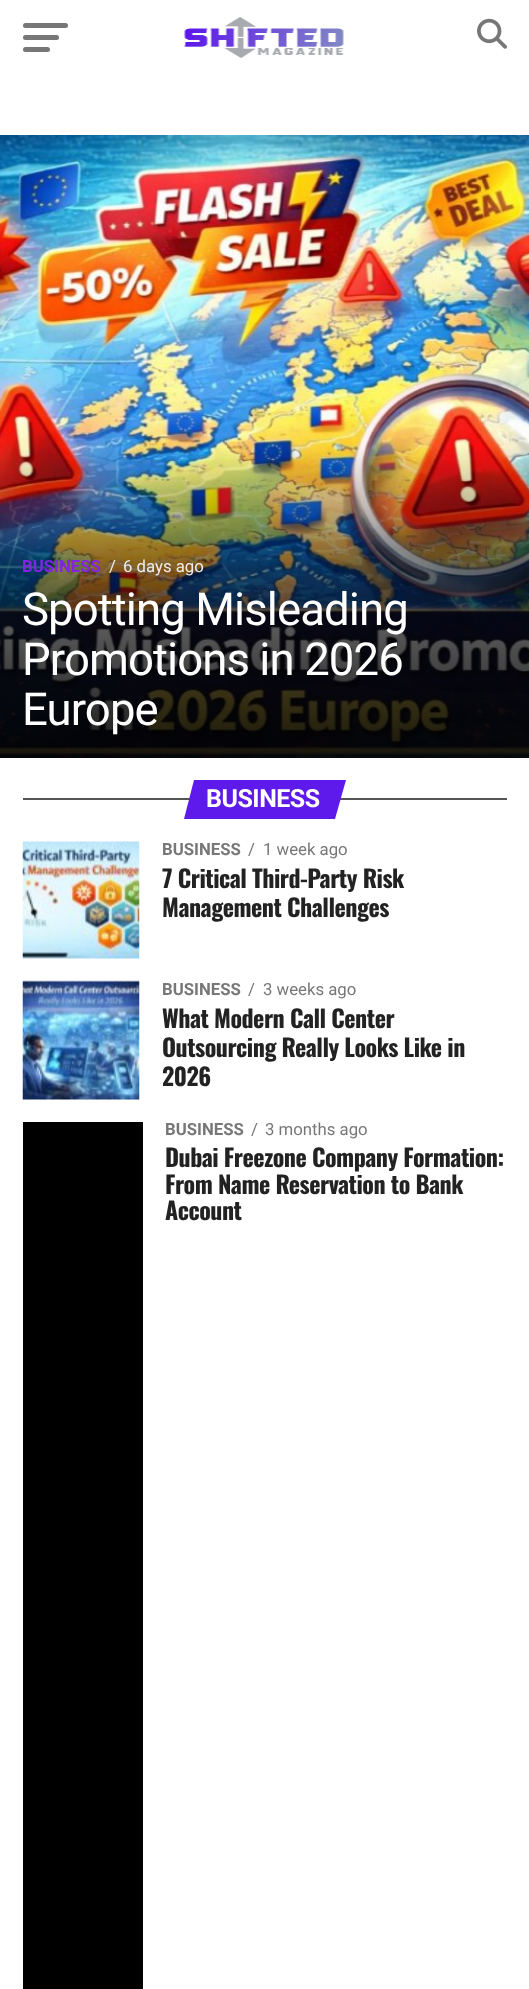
async function draw(canvas) {
	canvas.width = 529;
	canvas.height = 1989;
	const c = canvas.getContext('2d');
	c.miterLimit = 4;
	c.fontKerning = 'normal';
	async function loadImage(src) {
		const img = new Image();
		img.src = src;
		await img.decode();
		return img;
	}

	c.fillStyle = '#fff';
	c.fillRect(0, 0, 529, 1989);
	c.fillStyle = '#777';
	c.beginPath();
	c.roundRect(23, 23, 45, 5, 2.5);
	c.fill();
	c.beginPath();
	c.roundRect(23, 35, 36, 5, 2.5);
	c.fill();
	c.beginPath();
	c.roundRect(23, 47, 27, 5, 2.5);
	c.fill();
	c.drawImage(await loadImage('img1.png'), 184, 17, 160, 41);
	c.drawImage(await loadImage('img2.png'), 477, 18, 30, 31);
	c.drawImage(await loadImage('img3.png'), 0, 135, 529, 623);
	c.font = 'bold 16.75px Roboto';
	c.fillStyle = '#8224e3';
	c.fillText('BUSINESS', 22, 572);
	c.font = '16.75px Roboto';
	c.fillStyle = '#eee';
	c.fillText('/', 109, 572);
	c.fillText('6 days ago', 123, 572);
	c.letterSpacing = '-0.9px';
	c.font = '45.5px Roboto';
	c.fillStyle = '#fff';
	for (const [text, x, y] of [
		['Spotting Misleading', 22, 625],
		['Promotions in 2026', 22, 675],
		['Europe', 22, 725],
	]) {
		c.fillText(text, x, y);
	}
	c.fillStyle = '#555';
	c.fillRect(23, 798, 484, 2);
	c.fillStyle = '#5e1aea';
	c.beginPath();
	c.moveTo(194, 780);
	c.lineTo(346, 780);
	c.lineTo(335, 819);
	c.lineTo(184, 819);
	c.closePath();
	c.fill();
	c.letterSpacing = '-0.5px';
	c.font = 'bold 25px Roboto';
	c.fillStyle = '#fff';
	c.fillText('BUSINESS', 206, 807);
	c.drawImage(await loadImage('img4.png'), 22, 841, 118, 118);
	c.letterSpacing = '0px';
	c.font = 'bold 16.75px Roboto';
	c.fillStyle = '#777';
	c.fillText('BUSINESS', 162, 855);
	c.font = '16.75px Roboto';
	c.fillText('/', 248, 855);
	c.fillText('1 week ago', 263, 855);
	c.letterSpacing = '-0.5px';
	c.font = 'bold 24px Oswald';
	c.fillStyle = '#222';
	c.fillText('7 Critical Third-Party Risk', 162, 888);
	c.fillText('Management Challenges', 162, 917);
	c.drawImage(await loadImage('img5.png'), 22, 980, 118, 120);
	c.letterSpacing = '0px';
	c.font = 'bold 16.75px Roboto';
	c.fillStyle = '#777';
	c.fillText('BUSINESS', 162, 995);
	c.font = '16.75px Roboto';
	c.fillText('/', 248, 995);
	c.fillText('3 weeks ago', 263, 995);
	c.letterSpacing = '-0.5px';
	c.font = 'bold 24px Oswald';
	c.fillStyle = '#222';
	for (const [text, x, y] of [
		['What Modern Call Center', 162, 1028],
		['Outsourcing Really Looks Like in', 162, 1057],
		['2026', 162, 1086],
	]) {
		c.fillText(text, x, y);
	}
	c.fillStyle = '#000';
	c.fillRect(23, 1122, 120, 867);
	c.letterSpacing = '0px';
	c.font = 'bold 16.75px Roboto';
	c.fillStyle = '#777';
	c.fillText('BUSINESS', 165, 1135);
	c.font = '16.75px Roboto';
	c.fillText('/', 251, 1135);
	c.fillText('3 months ago', 265, 1135);
	c.letterSpacing = '-0.5px';
	c.font = 'bold 24px Oswald';
	c.fillStyle = '#222';
	for (const [text, x, y] of [
		['Dubai Freezone Company Formation:', 165, 1167],
		['From Name Reservation to Bank', 165, 1194],
		['Account', 165, 1220],
	]) {
		c.fillText(text, x, y);
	}
}

draw(document.querySelector('canvas'));
